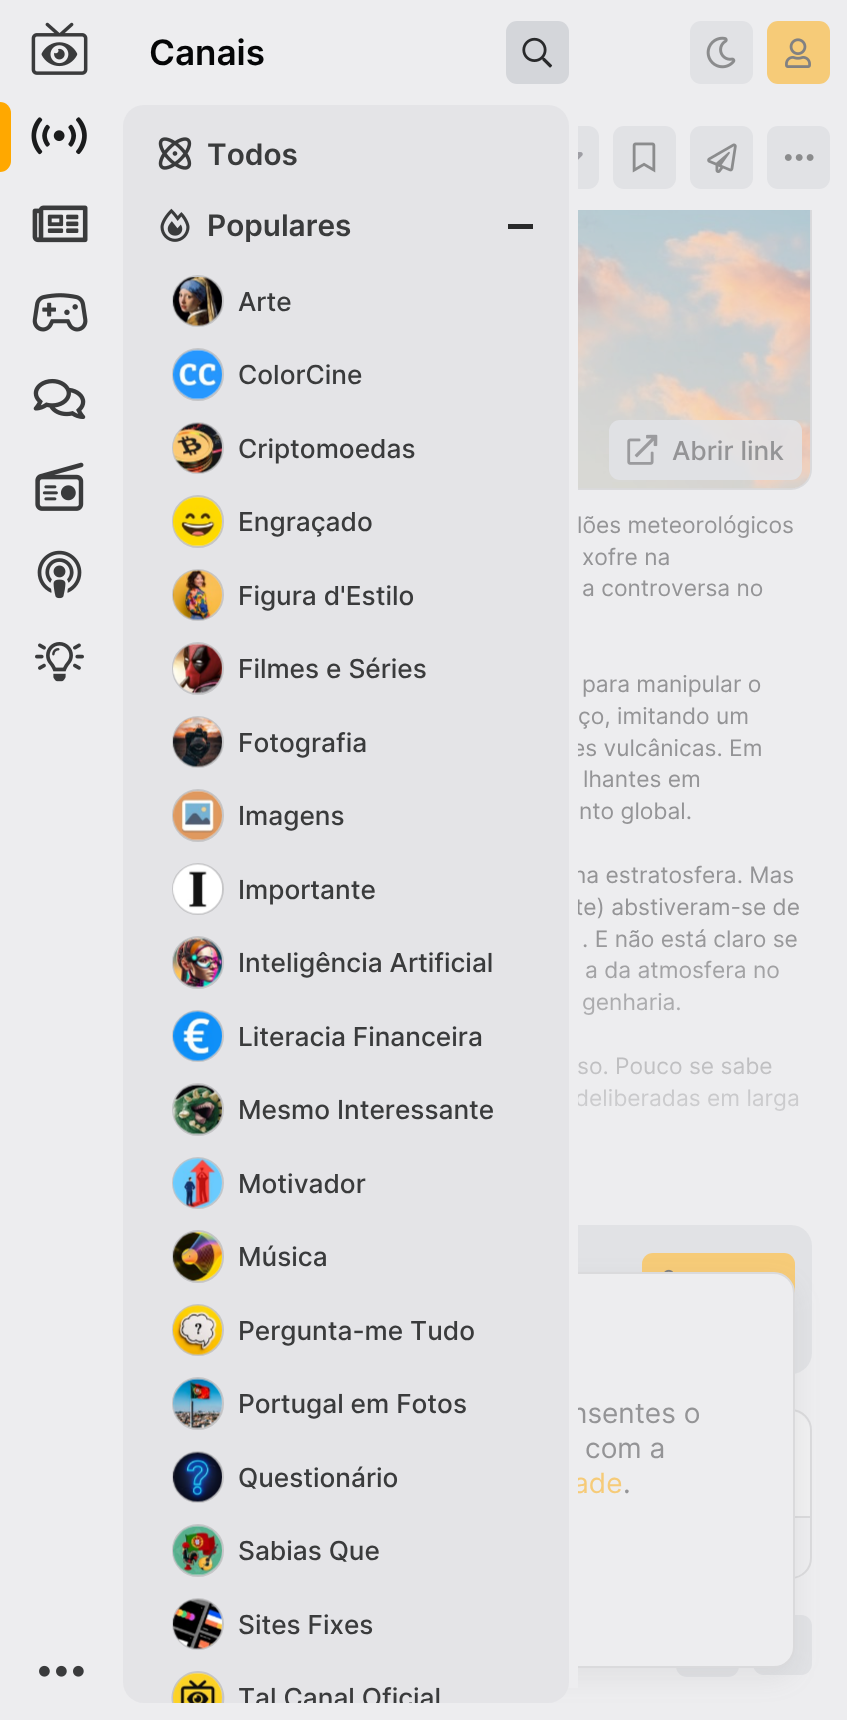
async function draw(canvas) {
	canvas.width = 847;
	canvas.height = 1720;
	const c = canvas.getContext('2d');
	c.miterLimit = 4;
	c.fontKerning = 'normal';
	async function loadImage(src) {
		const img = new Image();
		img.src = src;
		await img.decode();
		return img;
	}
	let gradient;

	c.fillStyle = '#ededef';
	c.fillRect(0, 0, 847, 1720);
	c.beginPath();
	c.roundRect(36, 61, 775, 428, 20);
	c.strokeStyle = '#dadadc';
	c.lineWidth = 2;
	c.stroke();
	c.fillStyle = '#e1e2e5';
	c.beginPath();
	c.roundRect(35, 1225, 777, 149, 21);
	c.fill();
	c.beginPath();
	c.roundRect(36, 1410, 775, 168, 20);
	c.stroke();
	c.fillStyle = '#f0f0f1';
	c.beginPath();
	c.roundRect(37, 1411, 773, 105, [21, 21, 0, 0]);
	c.fill();
	c.fillStyle = '#ededef';
	c.fillRect(35, 60, 88, 1519);
	c.drawImage(await loadImage('img1.png'), 31, 22, 57, 53);
	c.fillStyle = '#ffa800';
	c.beginPath();
	c.roundRect(0, 102, 11, 70, [0, 11, 11, 0]);
	c.fill();
	c.drawImage(await loadImage('img2.png'), 31, 117, 56, 38);
	c.drawImage(await loadImage('img3.png'), 32, 205, 56, 38);
	c.drawImage(await loadImage('img4.png'), 32, 293, 56, 39);
	c.drawImage(await loadImage('img5.png'), 33, 378, 53, 41);
	c.drawImage(await loadImage('img6.png'), 35, 462, 49, 49);
	c.drawImage(await loadImage('img7.png'), 37, 550, 45, 49);
	c.drawImage(await loadImage('img8.png'), 35, 642, 49, 40);
	c.drawImage(await loadImage('img9.png'), 39, 1665, 45, 12);
	c.fillStyle = '#e1e2e5';
	c.beginPath();
	c.roundRect(445, 126, 154, 63, 11);
	c.fill();
	c.font = '22.75px "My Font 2"';
	c.fillStyle = '#949496';
	for (const [text, x, y] of [
		['es vulcânicas. Em', 572, 756],
		['na estratosfera. Mas', 573, 883],
		['te) abstiveram-se de', 575, 915],
		['deliberadas em larga', 575, 1106],
	]) {
		c.fillText(text, x, y);
	}
	c.fillStyle = '#f6cb78';
	c.beginPath();
	c.roundRect(642, 1253, 153, 53, 11);
	c.fill();
	c.drawImage(await loadImage('img41.png'), 664, 1269, 9, 3);
	c.fillStyle = '#dadadc';
	c.fillRect(795, 1516, 15, 2);
	c.fillStyle = '#e1e2e5';
	c.beginPath();
	c.roundRect(676, 1614, 63, 63, 11);
	c.fill();
	c.beginPath();
	c.roundRect(753, 1615, 59, 60, 11);
	c.fill();
	c.fillStyle = '#7777781a';
	c.filter = 'blur(13px)';
	c.beginPath();
	c.roundRect(182, 1283, 613, 395, 21);
	c.fill();
	c.filter = 'none';
	c.fillStyle = '#ededef';
	c.beginPath();
	c.roundRect(183, 1273, 611, 394, 20);
	c.fill();
	c.stroke();
	c.font = '28px "My Font 2"';
	c.fillStyle = '#949496';
	c.fillText('nsentes o', 571, 1423);
	c.fillStyle = '#f6cb78';
	c.fillText('ade', 573, 1493);
	c.fillStyle = '#ededef';
	c.fillRect(123, 60, 455, 1628);
	c.font = '35px "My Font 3"';
	c.fillStyle = '#050607';
	c.fillText('Canais', 149, 65);
	c.fillStyle = '#d4d6da';
	c.beginPath();
	c.roundRect(506, 21, 63, 63, 11);
	c.fill();
	c.drawImage(await loadImage('img10.png'), 522, 37, 31, 31);
	c.fillStyle = '#e4e4e7';
	c.beginPath();
	c.roundRect(123, 105, 446, 1598, 21);
	c.fill();
	c.drawImage(await loadImage('img11.png'), 158, 137, 34, 33);
	c.font = '29.75px "My Font 3"';
	c.fillStyle = '#3a3b3c';
	c.fillText('Todos', 207, 165);
	c.drawImage(await loadImage('img12.png'), 160, 208, 30, 34);
	c.fillText('Populares', 207, 236);
	c.fillStyle = '#292a2b';
	c.fillRect(508, 224, 25, 5);
	c.beginPath();
	c.arc(198, 301, 25, 0, 2 * Math.PI);
	c.strokeStyle = '#c6c6c8';
	c.stroke();
	c.drawImage(await loadImage('img13.png'), 173, 277, 49, 49);
	c.font = '26.25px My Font';
	c.fillStyle = '#3a3b3c';
	c.fillText('Arte', 238, 311);
	c.beginPath();
	c.roundRect(173, 349, 50, 51, 25);
	c.stroke();
	c.drawImage(await loadImage('img14.png'), 173, 349, 49, 51);
	c.fillText('ColorCine', 238, 384);
	c.beginPath();
	c.arc(198, 448, 25, 0, 2 * Math.PI);
	c.stroke();
	c.drawImage(await loadImage('img15.png'), 173, 423, 49, 50);
	c.fillText('Criptomoedas', 238, 458);
	c.beginPath();
	c.roundRect(173, 496, 50, 51, 25);
	c.stroke();
	c.drawImage(await loadImage('img16.png'), 173, 496, 49, 51);
	c.fillText('Engraçado', 238, 531);
	c.beginPath();
	c.arc(198, 595, 25, 0, 2 * Math.PI);
	c.stroke();
	c.drawImage(await loadImage('img17.png'), 173, 570, 49, 50);
	c.fillText('Figura d\'Estilo', 238, 605);
	c.beginPath();
	c.roundRect(173, 643, 50, 51, 25);
	c.stroke();
	c.drawImage(await loadImage('img18.png'), 173, 643, 49, 51);
	c.fillText('Filmes e Séries', 238, 678);
	c.beginPath();
	c.arc(198, 742, 25, 0, 2 * Math.PI);
	c.stroke();
	c.drawImage(await loadImage('img19.png'), 173, 717, 49, 50);
	c.fillText('Fotografia', 238, 752);
	c.beginPath();
	c.roundRect(173, 790, 50, 51, 25);
	c.stroke();
	c.drawImage(await loadImage('img20.png'), 173, 790, 49, 51);
	c.fillText('Imagens', 238, 825);
	c.beginPath();
	c.arc(198, 889, 25, 0, 2 * Math.PI);
	c.stroke();
	c.drawImage(await loadImage('img21.png'), 173, 864, 49, 50);
	c.fillText('Importante', 238, 899);
	c.beginPath();
	c.roundRect(173, 937, 50, 51, 25);
	c.stroke();
	c.drawImage(await loadImage('img22.png'), 173, 937, 49, 51);
	c.fillText('Inteligência Artificial', 238, 972);
	c.beginPath();
	c.arc(198, 1036, 25, 0, 2 * Math.PI);
	c.stroke();
	c.drawImage(await loadImage('img23.png'), 173, 1011, 49, 50);
	c.fillText('Literacia Financeira', 238, 1046);
	c.beginPath();
	c.roundRect(173, 1084, 50, 51, 25);
	c.stroke();
	c.drawImage(await loadImage('img24.png'), 173, 1084, 49, 51);
	c.fillText('Mesmo Interessante', 238, 1119);
	c.beginPath();
	c.arc(198, 1183, 25, 0, 2 * Math.PI);
	c.stroke();
	c.drawImage(await loadImage('img25.png'), 173, 1158, 49, 50);
	c.fillText('Motivador', 238, 1193);
	c.beginPath();
	c.roundRect(173, 1231, 50, 51, 25);
	c.stroke();
	c.drawImage(await loadImage('img26.png'), 173, 1231, 49, 51);
	c.fillText('Música', 238, 1266);
	c.beginPath();
	c.arc(198, 1330, 25, 0, 2 * Math.PI);
	c.stroke();
	c.drawImage(await loadImage('img27.png'), 173, 1305, 49, 50);
	c.fillText('Pergunta-me Tudo', 238, 1340);
	c.beginPath();
	c.roundRect(173, 1378, 50, 51, 25);
	c.stroke();
	c.drawImage(await loadImage('img28.png'), 173, 1378, 49, 51);
	c.fillText('Portugal em Fotos', 238, 1413);
	c.beginPath();
	c.arc(198, 1477, 25, 0, 2 * Math.PI);
	c.stroke();
	c.drawImage(await loadImage('img29.png'), 173, 1452, 49, 50);
	c.fillText('Questionário', 238, 1487);
	c.beginPath();
	c.roundRect(173, 1525, 50, 51, 25);
	c.stroke();
	c.drawImage(await loadImage('img30.png'), 173, 1525, 49, 51);
	c.fillText('Sabias Que', 238, 1560);
	c.beginPath();
	c.arc(198, 1624, 25, 0, 2 * Math.PI);
	c.stroke();
	c.drawImage(await loadImage('img31.png'), 173, 1599, 49, 50);
	c.fillText('Sites Fixes', 238, 1634);
	c.fillStyle = '#c6c6c8';
	c.beginPath();
	c.moveTo(198, 1671);
	c.bezierCurveTo(181, 1671, 169, 1687, 172, 1703);
	c.lineTo(175, 1703);
	c.bezierCurveTo(169, 1677, 203, 1661, 218, 1684);
	c.bezierCurveTo(222, 1689, 223, 1696, 221, 1703);
	c.lineTo(224, 1703);
	c.bezierCurveTo(227, 1687, 215, 1671, 198, 1671);
	c.closePath();
	c.fill();
	c.drawImage(await loadImage('img32.png'), 173, 1672, 49, 31);
	c.save();
	c.beginPath();
	c.roundRect(123, 105, 446, 1598, 21);
	c.clip();
	c.fillStyle = '#3a3b3c';
	c.fillText('Tal Canal Oficial', 238, 1707);
	c.restore();
	c.fillStyle = '#ededef';
	c.fillRect(578, 60, 234, 45);
	c.fillStyle = '#e1e2e5';
	c.beginPath();
	c.roundRect(690, 21, 63, 63, 11);
	c.fill();
	c.drawImage(await loadImage('img33.png'), 706, 36, 30, 33);
	c.fillStyle = '#f6cb78';
	c.beginPath();
	c.roundRect(767, 21, 63, 63, 11);
	c.fill();
	c.drawImage(await loadImage('img34.png'), 785, 38, 26, 30);
	c.fillStyle = '#ededef';
	c.fillRect(810, 105, 2, 105);
	c.drawImage(await loadImage('img35.png'), 578, 152, 5, 8);
	c.fillStyle = '#e1e2e5';
	c.beginPath();
	c.roundRect(613, 126, 63, 63, 11);
	c.fill();
	c.drawImage(await loadImage('img36.png'), 632, 142, 24, 31);
	c.beginPath();
	c.roundRect(690, 126, 63, 63, 11);
	c.fill();
	c.drawImage(await loadImage('img37.png'), 707, 143, 30, 30);
	c.beginPath();
	c.roundRect(767, 126, 63, 63, 11);
	c.fill();
	c.drawImage(await loadImage('img38.png'), 784, 154, 30, 7);
	c.drawImage(await loadImage('img39.png'), 578, 210, 233, 279);
	c.fillStyle = '#e1e2e5e6';
	c.beginPath();
	c.roundRect(609, 420, 193, 60, 11);
	c.fill();
	c.drawImage(await loadImage('img40.png'), 627, 434, 31, 31);
	c.fillStyle = '#949496';
	c.fillText('Abrir link', 672, 460);
	c.font = '22.75px "My Font 2"';
	for (const [text, x, y] of [
		['lões meteorológicos', 577, 533],
		['xofre na', 582, 565],
		['a controversa no', 582, 596],
		['para manipular o', 582, 692],
		['ço, imitando um', 578, 724],
		['lhantes em', 583, 787],
		['nto global.', 579, 819],
		['. E não está claro se', 582, 947],
		['a da atmosfera no', 585, 978],
		['genharia.', 582, 1010],
		['so. Pouco se sabe', 577, 1074],
	]) {
		c.fillText(text, x, y);
	}
	gradient = c.createLinearGradient(423, 508, 424, 1208);
	gradient.addColorStop(0, '#ededef00');
	gradient.addColorStop(0.6, '#ededef00');
	gradient.addColorStop(1, '#ededef');
	c.fillStyle = gradient;
	c.fillRect(578, 935, 221, 176);
	c.font = '28px "My Font 2"';
	c.fillStyle = '#949496';
	c.fillText('com a', 585, 1458);
	c.fillText('.', 623, 1493);
}

draw(document.querySelector('canvas'));
